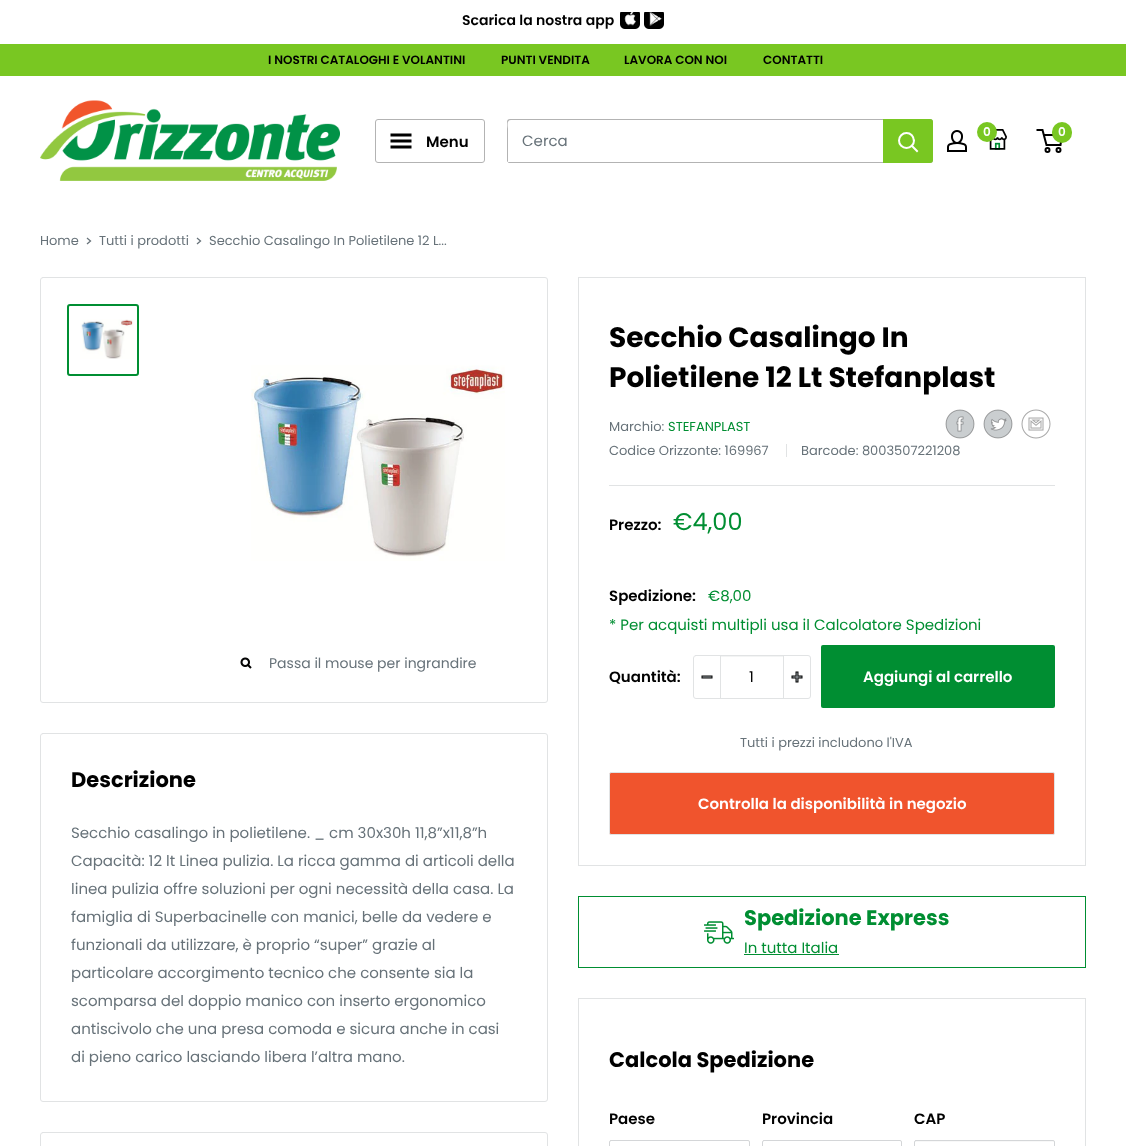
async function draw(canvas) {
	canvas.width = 1126;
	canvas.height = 1146;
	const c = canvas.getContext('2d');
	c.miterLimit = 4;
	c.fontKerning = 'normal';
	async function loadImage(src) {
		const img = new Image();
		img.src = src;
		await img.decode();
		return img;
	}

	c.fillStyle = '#fff';
	c.fillRect(0, 0, 1126, 1146);
	c.font = '600 14px Poppins';
	c.fillStyle = '#000';
	c.fillText('Scarica la nostra app', 462, 25);
	c.drawImage(await loadImage('img1.png'), 620, 12, 44, 17);
	c.fillStyle = '#79c722';
	c.fillRect(0, 44, 1126, 32);
	c.font = '600 12px Poppins';
	c.fillStyle = '#000';
	for (const [text, x, y] of [
		['I NOSTRI CATALOGHI E VOLANTINI', 268, 64],
		['PUNTI VENDITA', 501, 64],
		['LAVORA CON NOI', 624, 64],
		['CONTATTI', 763, 64],
	]) {
		c.fillText(text, x, y);
	}
	c.drawImage(await loadImage('img2.png'), 40, 100, 300, 81);
	c.drawImage(await loadImage('img3.png'), 947, 130, 20, 22);
	c.drawImage(await loadImage('img4.png'), 989, 129, 18, 21);
	c.fillStyle = '#79c722';
	c.beginPath();
	c.arc(987, 132, 10, 0, 2 * Math.PI);
	c.fill();
	c.fillStyle = '#fff';
	c.fillText('0', 983, 136);
	c.beginPath();
	c.moveTo(1044, 135);
	c.lineTo(1062, 135);
	c.lineTo(1060.5, 145);
	c.lineTo(1046.5, 145);
	c.lineTo(1042.5, 130);
	c.lineTo(1036.5, 130);
	c.strokeStyle = '#000';
	c.lineWidth = 2;
	c.stroke();
	c.fillStyle = '#79c722';
	c.beginPath();
	c.roundRect(1052, 122, 20, 21, 10);
	c.fill();
	c.fillStyle = '#fff';
	c.fillText('0', 1058, 136);
	c.beginPath();
	c.arc(1047.5, 150, 2, 0, 2 * Math.PI);
	c.stroke();
	c.beginPath();
	c.arc(1058.5, 150, 2, 0, 2 * Math.PI);
	c.stroke();
	c.beginPath();
	c.roundRect(375.5, 119.5, 109, 43, 2.5);
	c.strokeStyle = '#b3b3b3';
	c.lineWidth = 1;
	c.stroke();
	c.drawImage(await loadImage('img5.png'), 390, 133, 22, 16);
	c.font = '600 15px Poppins';
	c.fillStyle = '#000';
	c.fillText('Menu', 426, 147);
	c.fillStyle = '#b3b3b3';
	c.beginPath();
	c.moveTo(508, 162);
	c.bezierCurveTo(508, 163, 509, 163, 510, 163);
	c.lineTo(930, 163);
	c.bezierCurveTo(932, 163, 933, 162, 933, 160);
	c.lineTo(933, 122);
	c.bezierCurveTo(933, 121, 933, 120, 932, 120);
	c.lineTo(932, 153);
	c.bezierCurveTo(932, 155, 934, 162, 929, 162);
	c.closePath();
	c.fill();
	c.beginPath();
	c.moveTo(511, 120);
	c.lineTo(932, 120);
	c.bezierCurveTo(932, 119, 931, 119, 930, 119);
	c.lineTo(510, 119);
	c.bezierCurveTo(508, 119, 507, 120, 507, 122);
	c.lineTo(507, 160);
	c.bezierCurveTo(507, 161, 507, 162, 508, 162);
	c.lineTo(508, 129);
	c.bezierCurveTo(508, 127, 506, 120, 511, 120);
	c.closePath();
	c.fill();
	c.font = '15px Poppins';
	c.fillStyle = '#677279';
	c.fillText('Cerca', 522, 146);
	c.fillStyle = '#79c722';
	c.beginPath();
	c.roundRect(883, 119, 50, 44, [0, 3, 3, 0]);
	c.fill();
	c.beginPath();
	c.moveTo(917, 151);
	c.lineTo(912, 146);
	c.strokeStyle = '#fff';
	c.lineWidth = 2;
	c.lineCap = 'square';
	c.stroke();
	c.beginPath();
	c.arc(906.5, 140.5, 7.5, 0, 2 * Math.PI);
	c.stroke();
	c.font = '13px Poppins';
	c.fillStyle = '#677279';
	c.fillText('Home', 40, 245);
	c.beginPath();
	c.moveTo(87.5, 238.5);
	c.lineTo(90.5, 241);
	c.lineTo(87.5, 243.5);
	c.strokeStyle = '#677279';
	c.lineWidth = 1.3;
	c.stroke();
	c.fillText('Tutti i prodotti', 99, 245);
	c.beginPath();
	c.moveTo(197.5, 238.5);
	c.lineTo(200.5, 241);
	c.lineTo(197.5, 243.5);
	c.stroke();
	c.fillText('Secchio Casalingo In Polietilene 12 L...', 209, 245);
	c.beginPath();
	c.roundRect(40.5, 277.5, 507, 425, 2.5);
	c.strokeStyle = '#e1e3e4';
	c.lineWidth = 1;
	c.stroke();
	c.beginPath();
	c.roundRect(68, 305, 70, 70, 2);
	c.strokeStyle = '#008e32';
	c.lineWidth = 2;
	c.stroke();
	c.drawImage(await loadImage('img6.png'), 80, 319, 54, 40);
	c.drawImage(await loadImage('img7.png'), 251, 365, 254, 196);
	c.drawImage(await loadImage('img8.png'), 240, 657, 12, 12);
	c.font = '14px Poppins';
	c.fillText('Passa il mouse per ingrandire', 269, 668);
	c.strokeStyle = '#e1e3e4';
	c.lineWidth = 1;
	c.strokeRect(578.5, 277.5, 507, 588);
	c.font = 'bold 28px Poppins';
	c.fillStyle = '#000';
	c.fillText('Secchio Casalingo In', 609, 347);
	c.fillText('Polietilene 12 Lt Stefanplast', 609, 387);
	c.font = '13px Poppins';
	c.fillStyle = '#677279';
	c.fillText('Marchio:', 609, 431);
	c.fillStyle = '#008e32';
	c.fillText('STEFANPLAST', 668, 431);
	c.fillStyle = '#677279';
	c.fillText('Codice Orizzonte: 169967', 609, 455);
	c.fillStyle = '#e1e3e4';
	c.fillRect(786, 444, 1, 13);
	c.fillStyle = '#677279';
	c.fillText('Barcode: 8003507221208', 801, 455);
	c.drawImage(await loadImage('img9.png'), 945, 409, 30, 30);
	c.drawImage(await loadImage('img10.png'), 983, 409, 30, 30);
	c.drawImage(await loadImage('img11.png'), 1021, 409, 30, 30);
	c.fillStyle = '#e1e3e4';
	c.fillRect(609, 485, 446, 1);
	c.font = '600 15px Poppins';
	c.fillStyle = '#000';
	c.fillText('Prezzo:', 609, 530);
	c.font = '24px Poppins';
	c.fillStyle = '#008e32';
	c.fillText('€4,00', 673, 530);
	c.font = '600 15px Poppins';
	c.fillStyle = '#000';
	c.fillText('Spedizione:', 609, 601);
	c.font = '15px Poppins';
	c.fillStyle = '#008e32';
	c.fillText('€8,00', 708, 601);
	c.fillText('* Per acquisti multipli usa il Calcolatore Spedizioni', 609, 630);
	c.font = '600 15px Poppins';
	c.fillStyle = '#000';
	c.fillText('Quantità:', 609, 682);
	c.beginPath();
	c.roundRect(693.5, 655.5, 117, 43, 2.5);
	c.stroke();
	c.drawImage(await loadImage('img12.png'), 701, 675, 12, 4);
	for (const [x, y, w, h, color] of [
		[721, 656, 62, 1, '#f3f4f4'],
		[783, 656, 1, 42, '#e1e3e4'],
		[720, 656, 1, 42, '#e1e3e4'],
	]) {
		c.fillStyle = color;
		c.fillRect(x, y, w, h);
	}
	c.font = '15px Poppins';
	c.fillStyle = '#000';
	c.fillText('1', 749, 682);
	c.drawImage(await loadImage('img13.png'), 791, 671, 12, 12);
	c.fillStyle = '#008e32';
	c.beginPath();
	c.roundRect(821, 645, 234, 63, 2);
	c.fill();
	c.font = '600 15px Poppins';
	c.fillStyle = '#fff';
	c.fillText('Aggiungi al carrello', 863, 682);
	c.font = '13px Poppins';
	c.fillStyle = '#677279';
	c.fillText('Tutti i prezzi includono l\'IVA', 740, 747);
	c.fillStyle = '#f0542d';
	c.beginPath();
	c.roundRect(609.5, 772.5, 445, 62, 1.5);
	c.fill();
	c.stroke();
	c.font = '600 15px Poppins';
	c.fillStyle = '#fff';
	c.fillText('Controlla la disponibilità in negozio', 698, 809);
	c.strokeStyle = '#008e32';
	c.strokeRect(578.5, 896.5, 507, 71);
	c.drawImage(await loadImage('img14.png'), 704, 921, 30, 23);
	c.font = 'bold 21px Poppins';
	c.fillStyle = '#008e32';
	c.fillText('Spedizione Express', 744, 925);
	c.font = '15px Poppins';
	c.fillText('In tutta Italia', 744, 953);
	c.fillRect(744, 954, 95, 1);
	c.strokeStyle = '#e1e3e4';
	c.strokeRect(578.5, 998.5, 507, 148);
	c.font = 'bold 21px Poppins';
	c.fillStyle = '#000';
	c.fillText('Calcola Spedizione', 609, 1067);
	c.font = '600 15px Poppins';
	c.fillText('Paese', 609, 1124);
	c.beginPath();
	c.roundRect(609.5, 1140.5, 140, 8, 1.5);
	c.strokeStyle = '#d4d6d8';
	c.stroke();
	c.fillText('Provincia', 762, 1124);
	c.beginPath();
	c.roundRect(762.5, 1140.5, 139, 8, 1.5);
	c.stroke();
	c.fillText('CAP', 914, 1124);
	c.fillStyle = '#f8f8f8';
	c.beginPath();
	c.moveTo(916, 1142);
	c.lineTo(1053, 1142);
	c.bezierCurveTo(1054, 1142, 1054, 1142, 1054, 1143);
	c.bezierCurveTo(1054, 1142, 1054, 1141, 1053, 1141);
	c.lineTo(916, 1141);
	c.bezierCurveTo(915, 1141, 915, 1142, 915, 1143);
	c.bezierCurveTo(915, 1142, 915, 1142, 916, 1142);
	c.closePath();
	c.fill();
	c.beginPath();
	c.roundRect(914.5, 1140.5, 140, 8, 1.5);
	c.stroke();
	c.beginPath();
	c.roundRect(40.5, 733.5, 507, 368, 2.5);
	c.strokeStyle = '#e1e3e4';
	c.stroke();
	c.font = 'bold 21px Poppins';
	c.fillStyle = '#000';
	c.fillText('Descrizione', 71, 787);
	c.font = '15px Poppins';
	c.fillStyle = '#677279';
	for (const [text, x, y] of [
		['Secchio casalingo in polietilene. _ cm 30x30h 11,8”x11,8”h', 71, 838],
		['Capacità: 12 lt Linea pulizia. La ricca gamma di articoli della', 71, 866],
		['linea pulizia offre soluzioni per ogni necessità della casa. La', 71, 894],
		['famiglia di Superbacinelle con manici, belle da vedere e', 71, 922],
		['funzionali da utilizzare, è proprio “super” grazie al', 71, 950],
		['particolare accorgimento tecnico che consente sia la', 71, 978],
		['scomparsa del doppio manico con inserto ergonomico', 71, 1006],
		['antiscivolo che una presa comoda e sicura anche in casi', 71, 1034],
		['di pieno carico lasciando libera l’altra mano.', 71, 1062],
	]) {
		c.fillText(text, x, y);
	}
	c.beginPath();
	c.roundRect(40.5, 1132.5, 507, 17, 2.5);
	c.stroke();
}

draw(document.querySelector('canvas'));
